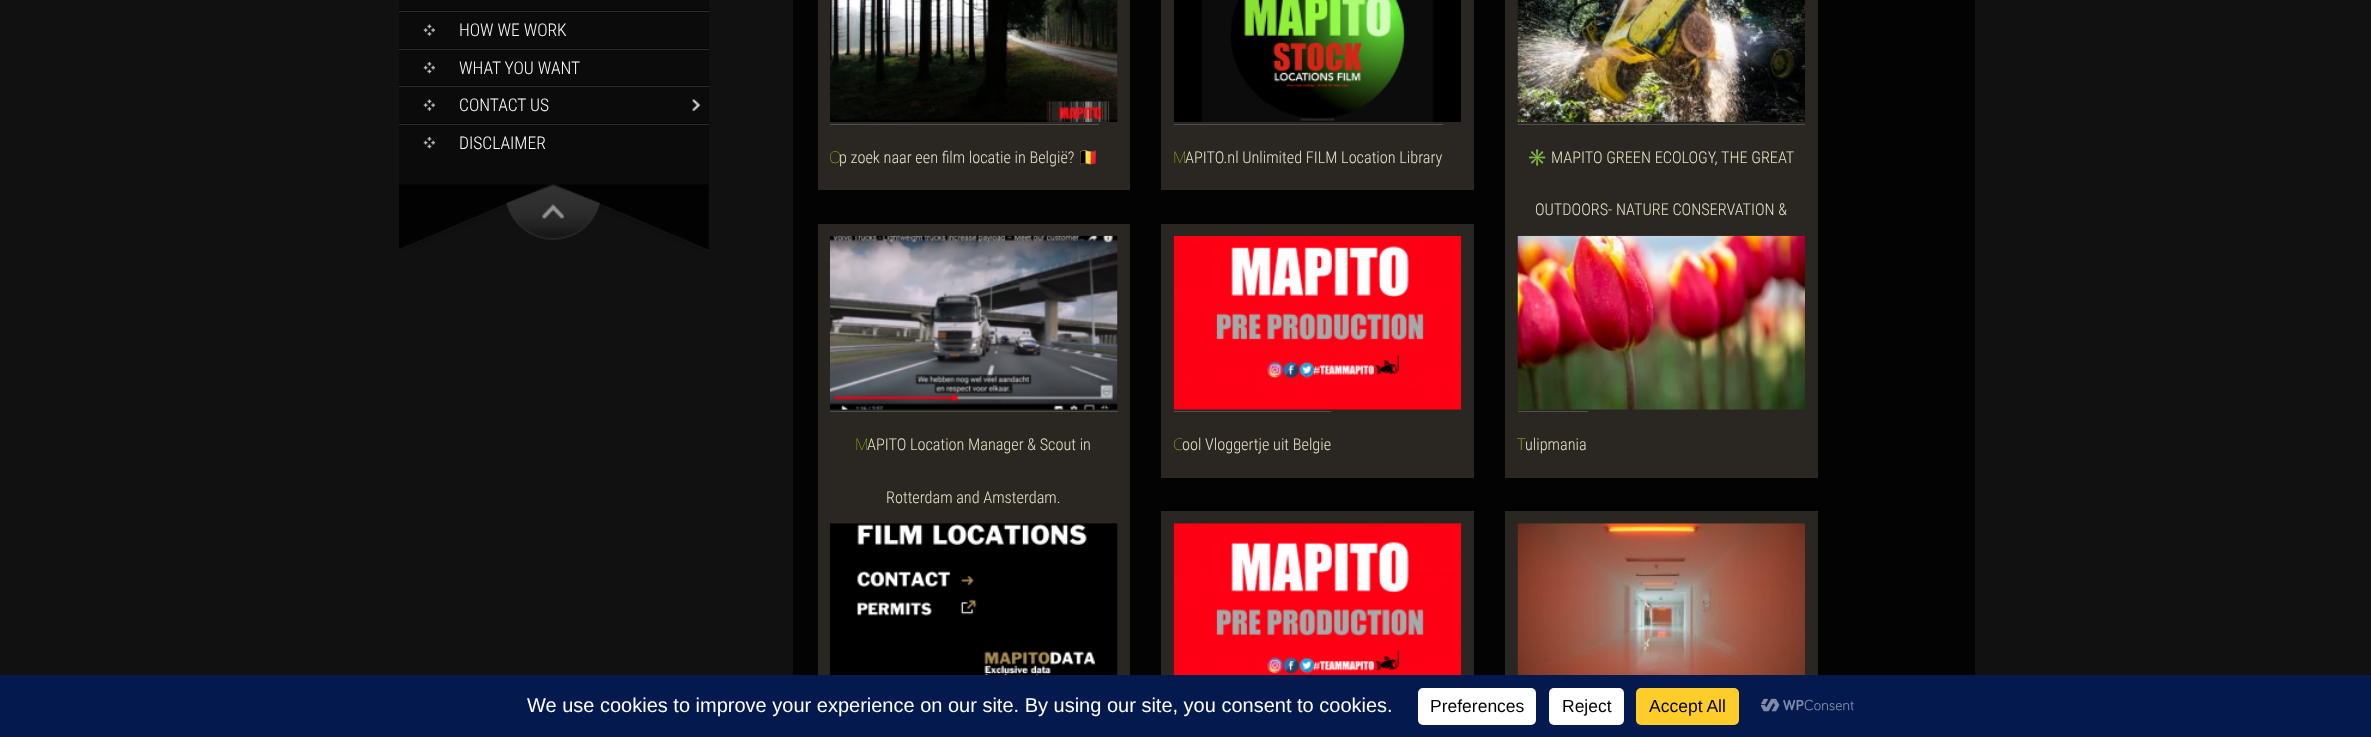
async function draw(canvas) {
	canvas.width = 2371;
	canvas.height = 737;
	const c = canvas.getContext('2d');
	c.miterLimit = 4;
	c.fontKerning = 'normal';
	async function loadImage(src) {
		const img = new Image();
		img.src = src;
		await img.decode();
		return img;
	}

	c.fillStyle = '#111';
	c.fillRect(0, 0, 2371, 737);
	for (const [x, y, w, h, color] of [
		[399, 0, 310, 185, '#0b0b0b'],
		[399, 10, 310, 1, '#040506'],
		[399, 11, 310, 1, '#2c2d2e'],
		[399, 48, 310, 1, '#040506'],
	]) {
		c.fillStyle = color;
		c.fillRect(x, y, w, h);
	}
	c.drawImage(await loadImage('img1.png'), 423, 24, 12, 12);
	c.font = '300 17.5px Roboto Condensed';
	c.fillStyle = '#fff';
	c.fillText('HOW WE WORK', 459, 36);
	c.fillStyle = '#2c2d2e';
	c.fillRect(399, 49, 310, 1);
	c.fillStyle = '#040506';
	c.fillRect(399, 85, 310, 1);
	c.drawImage(await loadImage('img2.png'), 423, 62, 12, 12);
	c.fillStyle = '#fff';
	c.fillText('WHAT YOU WANT', 459, 74);
	c.drawImage(await loadImage('img3.png'), 692, 99, 9, 12);
	c.fillStyle = '#2c2d2e';
	c.fillRect(399, 86, 310, 1);
	c.fillStyle = '#040506';
	c.fillRect(399, 123, 310, 1);
	c.drawImage(await loadImage('img1.png'), 423, 99, 12, 12);
	c.fillStyle = '#fff';
	c.fillText('CONTACT US', 459, 111);
	c.fillStyle = '#2c2d2e';
	c.fillRect(399, 124, 310, 1);
	c.drawImage(await loadImage('img2.png'), 423, 137, 12, 12);
	c.fillStyle = '#fff';
	c.fillText('DISCLAIMER', 459, 149);
	c.drawImage(await loadImage('img4.png'), 399, 184, 310, 67);
	c.drawImage(await loadImage('img5.png'), 506, 184, 94, 56);
	c.fillStyle = '#030303';
	c.fillRect(793, 0, 1182, 675);
	c.fillStyle = '#2a2622';
	c.fillRect(818, 0, 312, 190);
	c.drawImage(await loadImage('img6.png'), 830, 0, 288, 122);
	c.fillStyle = '#4f4f4f';
	c.fillRect(830, 124, 269, 1);
	c.font = '100 16.25px Noto Sans';
	c.fillStyle = '#9acc04';
	c.fillText('O', 829, 163);
	c.font = '300 16.25px Roboto Condensed';
	c.fillStyle = '#e7e2c5';
	c.fillText('p zoek naar een film locatie in België?', 839, 163);
	c.font = '16.25px Noto Color Emoji';
	c.fillText('🇧🇪', 1078, 163);
	c.fillStyle = '#2a2622';
	c.fillRect(1161, 0, 313, 190);
	c.drawImage(await loadImage('img7.png'), 1174, 0, 287, 122);
	c.fillStyle = '#4f4f4f';
	c.fillRect(1174, 124, 269, 1);
	c.font = '100 16.25px Noto Sans';
	c.fillStyle = '#9acc04';
	c.fillText('M', 1173, 163);
	c.font = '300 16.25px Roboto Condensed';
	c.fillStyle = '#e7e2c5';
	c.fillText('APITO.nl Unlimited FILM Location Library', 1185, 163);
	c.fillStyle = '#2a2622';
	c.fillRect(1505, 0, 313, 478);
	c.drawImage(await loadImage('img8.png'), 1517, 0, 288, 122);
	c.fillStyle = '#4f4f4f';
	c.fillRect(1518, 124, 287, 1);
	c.font = '100 16.25px Noto Sans';
	c.fillStyle = '#9acc04';
	c.fillText('✳️', 1527, 163);
	c.font = '300 16.25px Roboto Condensed';
	c.fillStyle = '#e7e2c5';
	c.fillText('MAPITO GREEN ECOLOGY, THE GREAT', 1551, 163);
	c.fillText('OUTDOORS- NATURE CONSERVATION &', 1535, 215);
	c.fillStyle = '#2a2622';
	c.fillRect(818, 224, 312, 451);
	c.drawImage(await loadImage('img9.png'), 830, 235, 288, 175);
	c.fillStyle = '#4f4f4f';
	c.fillRect(830, 411, 288, 1);
	c.font = '100 16.25px Noto Sans';
	c.fillStyle = '#9acc04';
	c.fillText('M', 855, 450);
	c.font = '300 16.25px Roboto Condensed';
	c.fillStyle = '#e7e2c5';
	c.fillText('APITO Location Manager & Scout in', 867, 450);
	c.fillText('Rotterdam and Amsterdam.', 886, 503);
	c.fillStyle = '#2a2622';
	c.fillRect(1161, 224, 313, 254);
	c.drawImage(await loadImage('img10.png'), 1173, 235, 289, 175);
	c.fillStyle = '#4f4f4f';
	c.fillRect(1174, 411, 157, 1);
	c.font = '100 16.25px Noto Sans';
	c.fillStyle = '#9acc04';
	c.fillText('C', 1173, 450);
	c.font = '300 16.25px Roboto Condensed';
	c.fillStyle = '#e7e2c5';
	c.fillText('ool Vloggertje uit Belgie', 1182, 450);
	c.drawImage(await loadImage('img11.png'), 1517, 235, 288, 175);
	c.fillStyle = '#4f4f4f';
	c.fillRect(1518, 411, 70, 1);
	c.font = '200 16.25px Noto Sans';
	c.fillStyle = '#9acc04';
	c.fillText('T', 1517, 450);
	c.font = '300 16.25px Roboto Condensed';
	c.fillStyle = '#e7e2c5';
	c.fillText('ulipmania', 1525, 450);
	c.drawImage(await loadImage('img12.png'), 830, 523, 288, 152);
	c.fillStyle = '#2a2622';
	c.fillRect(1161, 511, 313, 164);
	c.drawImage(await loadImage('img13.png'), 1173, 523, 289, 152);
	c.fillRect(1505, 511, 313, 164);
	c.drawImage(await loadImage('img14.png'), 1517, 523, 288, 152);
	c.fillStyle = '#04194e';
	c.fillRect(0, 675, 2371, 62);
	c.font = '20px Liberation Sans';
	c.fillStyle = '#fff';
	c.fillText('We use cookies to improve your experience on our site. By using our site, you consent to cookies.', 527, 712);
	c.beginPath();
	c.roundRect(1418, 688, 118, 37, 5);
	c.fill();
	c.font = '17.5px Liberation Sans';
	c.fillStyle = '#000';
	c.fillText('Preferences', 1430, 712);
	c.fillStyle = '#fff';
	c.beginPath();
	c.roundRect(1549, 688, 75, 37, 5);
	c.fill();
	c.fillStyle = '#000';
	c.fillText('Reject', 1562, 712);
	c.fillStyle = '#ffcd2a';
	c.beginPath();
	c.roundRect(1636, 688, 103, 37, 5);
	c.fill();
	c.fillStyle = '#000';
	c.fillText('Accept All', 1649, 712);
	c.drawImage(await loadImage('img15.png'), 1761, 698, 93, 14);
}

draw(document.querySelector('canvas'));
